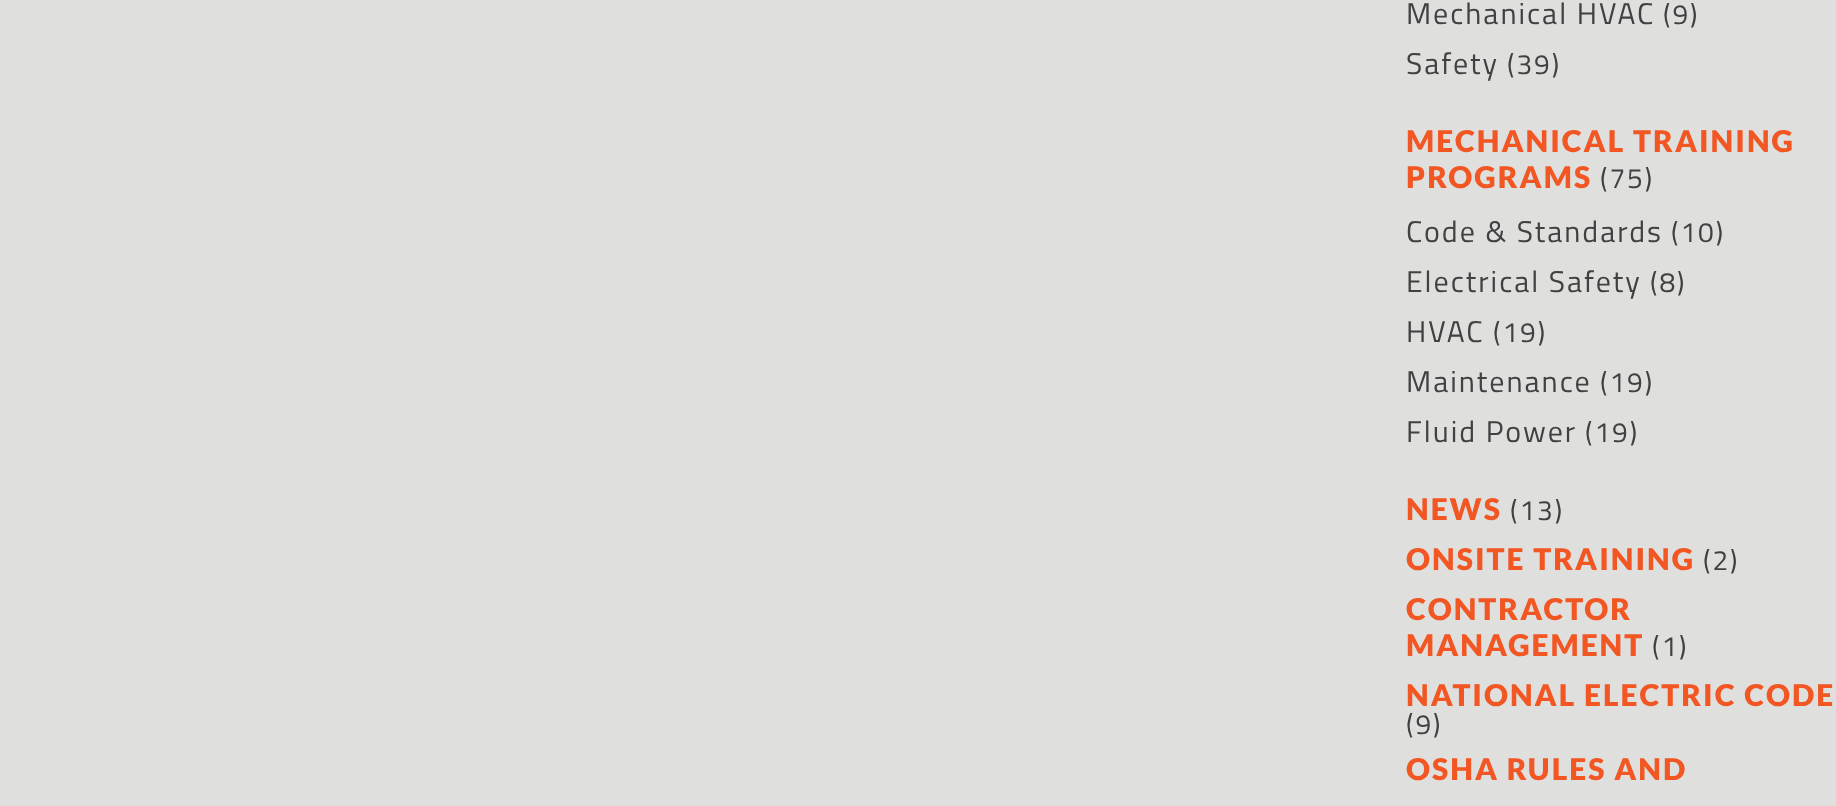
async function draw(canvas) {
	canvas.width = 1836;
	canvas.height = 806;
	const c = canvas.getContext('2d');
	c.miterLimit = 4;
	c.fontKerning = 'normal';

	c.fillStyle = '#dfdfde';
	c.fillRect(0, 0, 1836, 806);
	c.letterSpacing = '2px';
	c.font = '30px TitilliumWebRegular';
	c.fillStyle = '#414142';
	c.fillText('Mechanical HVAC', 1406, 24);
	c.font = '28px TitilliumWebRegular';
	c.fillText('(9)', 1663, 24);
	c.font = '30px TitilliumWebRegular';
	c.fillText('Safety', 1406, 74);
	c.font = '28px TitilliumWebRegular';
	c.fillText('(39)', 1507, 74);
	c.font = '900 30px Lato';
	c.fillStyle = '#f15623';
	c.fillText('MECHANICAL TRAINING', 1406, 152);
	c.fillText('PROGRAMS', 1406, 188);
	c.font = '28px TitilliumWebRegular';
	c.fillStyle = '#414142';
	c.fillText('(75)', 1600, 188);
	c.font = '30px TitilliumWebRegular';
	c.fillText('Code & Standards', 1406, 242);
	c.font = '28px TitilliumWebRegular';
	c.fillText('(10)', 1671, 242);
	c.font = '30px TitilliumWebRegular';
	c.fillText('Electrical Safety', 1406, 292);
	c.font = '28px TitilliumWebRegular';
	c.fillText('(8)', 1650, 292);
	c.font = '30px TitilliumWebRegular';
	c.fillText('HVAC', 1406, 342);
	c.font = '28px TitilliumWebRegular';
	c.fillText('(19)', 1493, 342);
	c.font = '30px TitilliumWebRegular';
	c.fillText('Maintenance', 1406, 392);
	c.font = '28px TitilliumWebRegular';
	c.fillText('(19)', 1600, 392);
	c.font = '30px TitilliumWebRegular';
	c.fillText('Fluid Power', 1406, 442);
	c.font = '28px TitilliumWebRegular';
	c.fillText('(19)', 1585, 442);
	c.font = '900 30px Lato';
	c.fillStyle = '#f15623';
	c.fillText('NEWS', 1406, 520);
	c.font = '28px TitilliumWebRegular';
	c.fillStyle = '#414142';
	c.fillText('(13)', 1510, 520);
	c.font = '900 30px Lato';
	c.fillStyle = '#f15623';
	c.fillText('ONSITE TRAINING', 1406, 570);
	c.font = '28px TitilliumWebRegular';
	c.fillStyle = '#414142';
	c.fillText('(2)', 1703, 570);
	c.font = '900 30px Lato';
	c.fillStyle = '#f15623';
	c.fillText('CONTRACTOR', 1406, 620);
	c.fillText('MANAGEMENT', 1406, 656);
	c.font = '28px TitilliumWebRegular';
	c.fillStyle = '#414142';
	c.fillText('(1)', 1652, 656);
	c.font = '900 30px Lato';
	c.fillStyle = '#f15623';
	c.fillText('NATIONAL ELECTRIC CODE', 1406, 706);
	c.font = '28px TitilliumWebRegular';
	c.fillStyle = '#414142';
	c.fillText('(9)', 1406, 734);
	c.font = '900 30px Lato';
	c.fillStyle = '#f15623';
	c.fillText('OSHA RULES AND', 1406, 780);
}

draw(document.querySelector('canvas'));
